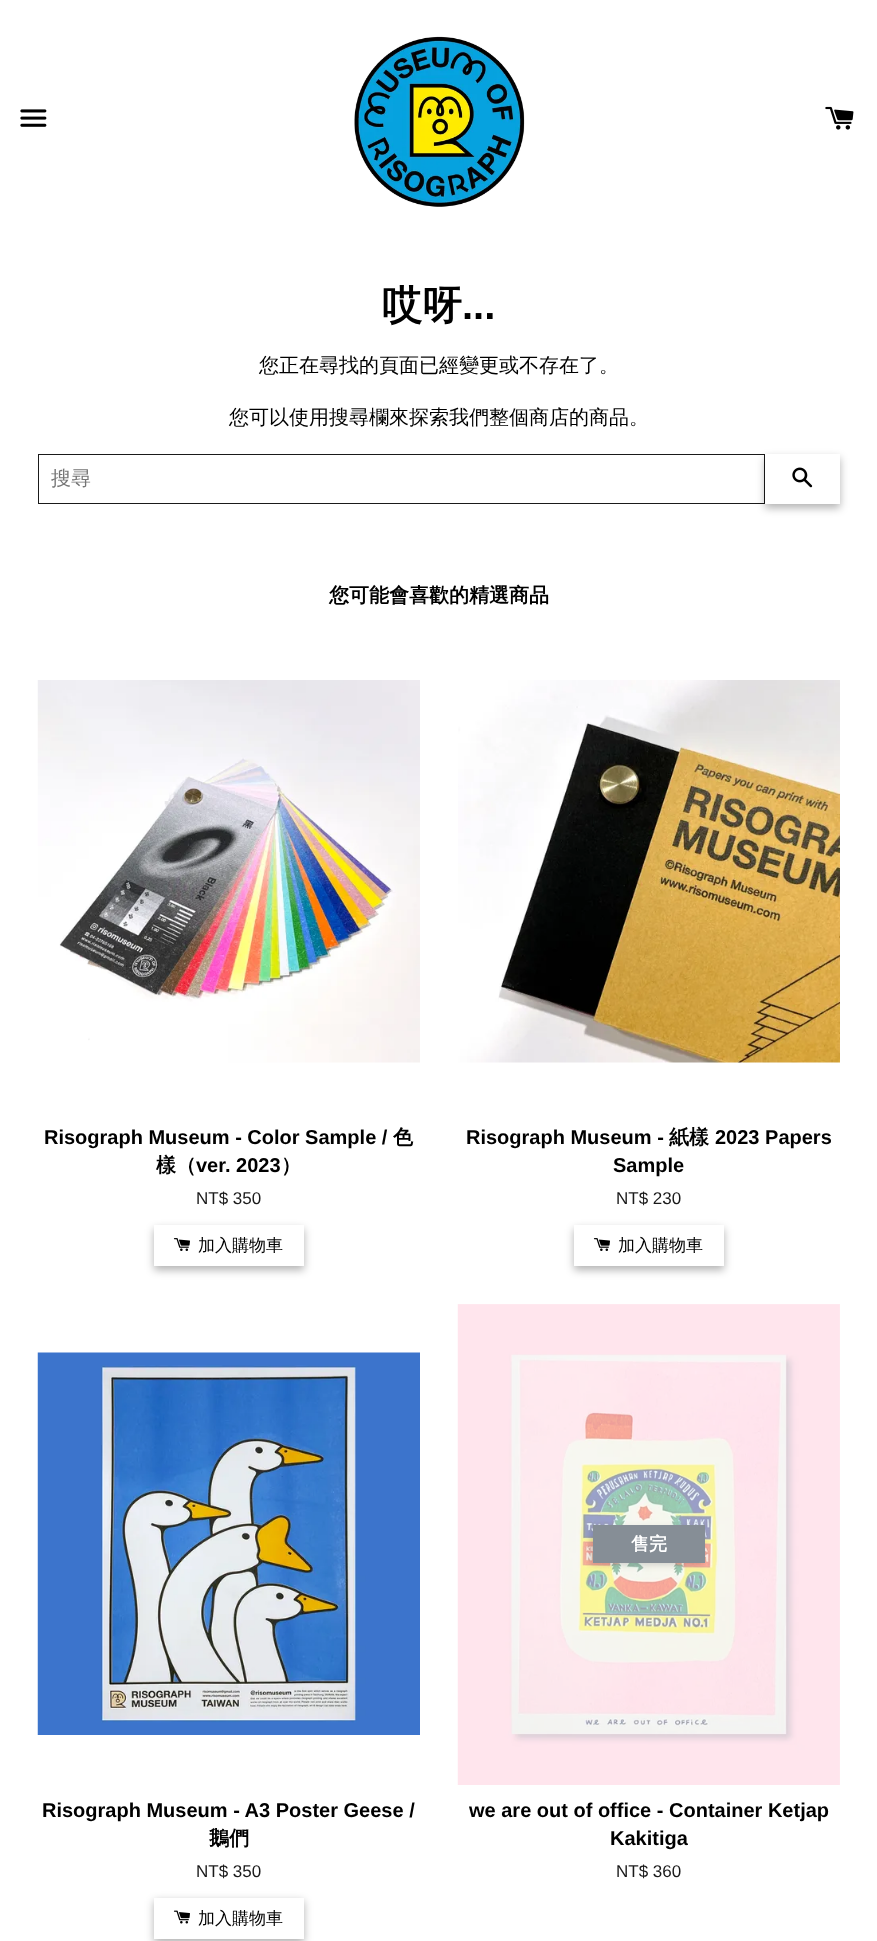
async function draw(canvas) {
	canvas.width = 877;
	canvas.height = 1941;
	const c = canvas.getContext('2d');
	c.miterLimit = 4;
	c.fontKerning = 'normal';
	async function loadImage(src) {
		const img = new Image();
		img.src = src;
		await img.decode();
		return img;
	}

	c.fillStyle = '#fff';
	c.fillRect(0, 0, 877, 1941);
	c.drawImage(await loadImage('img1.png'), 20, 109, 27, 18);
	c.drawImage(await loadImage('img2.png'), 354, 36, 171, 171);
	c.drawImage(await loadImage('img3.png'), 825, 106, 29, 24);
	c.font = 'bold 40px WenQuanYi Zen Hei';
	c.fillStyle = '#000';
	c.fillText('哎呀', 382, 319);
	c.font = 'bold 40px Liberation Sans';
	c.fillText('...', 462, 319);
	c.font = '500 20px WenQuanYi Zen Hei';
	c.fillText('您正在尋找的頁面已經變更或不存在了。', 259, 372);
	c.fillText('您可以使用搜尋欄來探索我們整個商店的商品。', 229, 424);
	c.strokeStyle = '#1a1a1a';
	c.strokeRect(38.5, 454.5, 726, 49);
	c.fillStyle = '#757575';
	c.fillText('搜尋', 51, 485);
	c.fillStyle = '#0000004d';
	c.filter = 'blur(4.5px)';
	c.beginPath();
	c.rect(765, 458, 75, 50);
	c.fill();
	c.filter = 'none';
	c.fillStyle = '#fff';
	c.fillRect(765, 454, 75, 50);
	c.drawImage(await loadImage('img4.png'), 792, 467, 21, 21);
	c.font = 'bold 20px WenQuanYi Zen Hei';
	c.fillStyle = '#000';
	c.fillText('您可能會喜歡的精選商品', 329, 602);
	c.drawImage(await loadImage('img5.png'), 37, 680, 383, 383);
	c.font = 'bold 20px Liberation Sans';
	c.fillText('Risograph Museum - Color Sample /', 44, 1144);
	c.font = 'bold 20px WenQuanYi Zen Hei';
	c.fillText('色', 393, 1144);
	c.fillText('樣（', 156, 1172);
	c.font = 'bold 20px Liberation Sans';
	c.fillText('ver. 2023', 196, 1172);
	c.font = 'bold 20px WenQuanYi Zen Hei';
	c.fillText('）', 281, 1172);
	c.font = '17px Liberation Sans';
	c.fillStyle = '#1a1a1a';
	c.fillText('NT$ 350', 196, 1204);
	c.fillStyle = '#0000004d';
	c.filter = 'blur(4.5px)';
	c.beginPath();
	c.rect(154, 1229, 150, 41);
	c.fill();
	c.filter = 'none';
	c.fillStyle = '#fff';
	c.fillRect(154, 1225, 150, 41);
	c.drawImage(await loadImage('img6.png'), 173, 1238, 17, 13);
	c.font = '500 17px WenQuanYi Zen Hei';
	c.fillStyle = '#000';
	c.fillText('加入購物車', 198, 1251);
	c.drawImage(await loadImage('img7.png'), 458, 680, 382, 383);
	c.font = 'bold 20px Liberation Sans';
	c.fillText('Risograph Museum -', 466, 1144);
	c.font = 'bold 20px WenQuanYi Zen Hei';
	c.fillText('紙樣', 669, 1144);
	c.font = 'bold 20px Liberation Sans';
	c.fillText('2023 Papers', 715, 1144);
	c.fillText('Sample', 613, 1172);
	c.font = '17px Liberation Sans';
	c.fillStyle = '#1a1a1a';
	c.fillText('NT$ 230', 616, 1204);
	c.fillStyle = '#0000004d';
	c.filter = 'blur(4.5px)';
	c.beginPath();
	c.rect(574, 1229, 150, 41);
	c.fill();
	c.filter = 'none';
	c.fillStyle = '#fff';
	c.fillRect(574, 1225, 150, 41);
	c.drawImage(await loadImage('img6.png'), 593, 1238, 17, 13);
	c.font = '500 17px WenQuanYi Zen Hei';
	c.fillStyle = '#000';
	c.fillText('加入購物車', 618, 1251);
	c.drawImage(await loadImage('img8.png'), 37, 1352, 383, 383);
	c.font = 'bold 20px Liberation Sans';
	c.fillText('Risograph Museum - A3 Poster Geese /', 42, 1817);
	c.font = 'bold 20px WenQuanYi Zen Hei';
	c.fillText('鵝們', 209, 1845);
	c.font = '17px Liberation Sans';
	c.fillStyle = '#1a1a1a';
	c.fillText('NT$ 350', 196, 1877);
	c.fillStyle = '#0000004d';
	c.filter = 'blur(4.5px)';
	c.beginPath();
	c.rect(154, 1901, 150, 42);
	c.fill();
	c.filter = 'none';
	c.fillStyle = '#fff';
	c.fillRect(154, 1898, 150, 41);
	c.drawImage(await loadImage('img9.png'), 173, 1910, 17, 14);
	c.font = '500 17px WenQuanYi Zen Hei';
	c.fillStyle = '#000';
	c.fillText('加入購物車', 198, 1924);
	c.drawImage(await loadImage('img10.png'), 457, 1304, 383, 481);
	c.fillStyle = '#00000026';
	c.filter = 'blur(3px)';
	c.beginPath();
	c.rect(590, 1528, 113, 37);
	c.fill();
	c.filter = 'none';
	c.fillStyle = '#868e96';
	c.fillRect(593, 1525, 112, 38);
	c.font = 'bold 18px WenQuanYi Zen Hei';
	c.fillStyle = '#fff';
	c.fillText('售完', 631, 1550);
	c.font = 'bold 20px Liberation Sans';
	c.fillStyle = '#000';
	c.fillText('we are out of office - Container Ketjap', 469, 1817);
	c.fillText('Kakitiga', 610, 1845);
	c.font = '17px Liberation Sans';
	c.fillStyle = '#1a1a1a';
	c.fillText('NT$ 360', 616, 1877);
}

draw(document.querySelector('canvas'));
